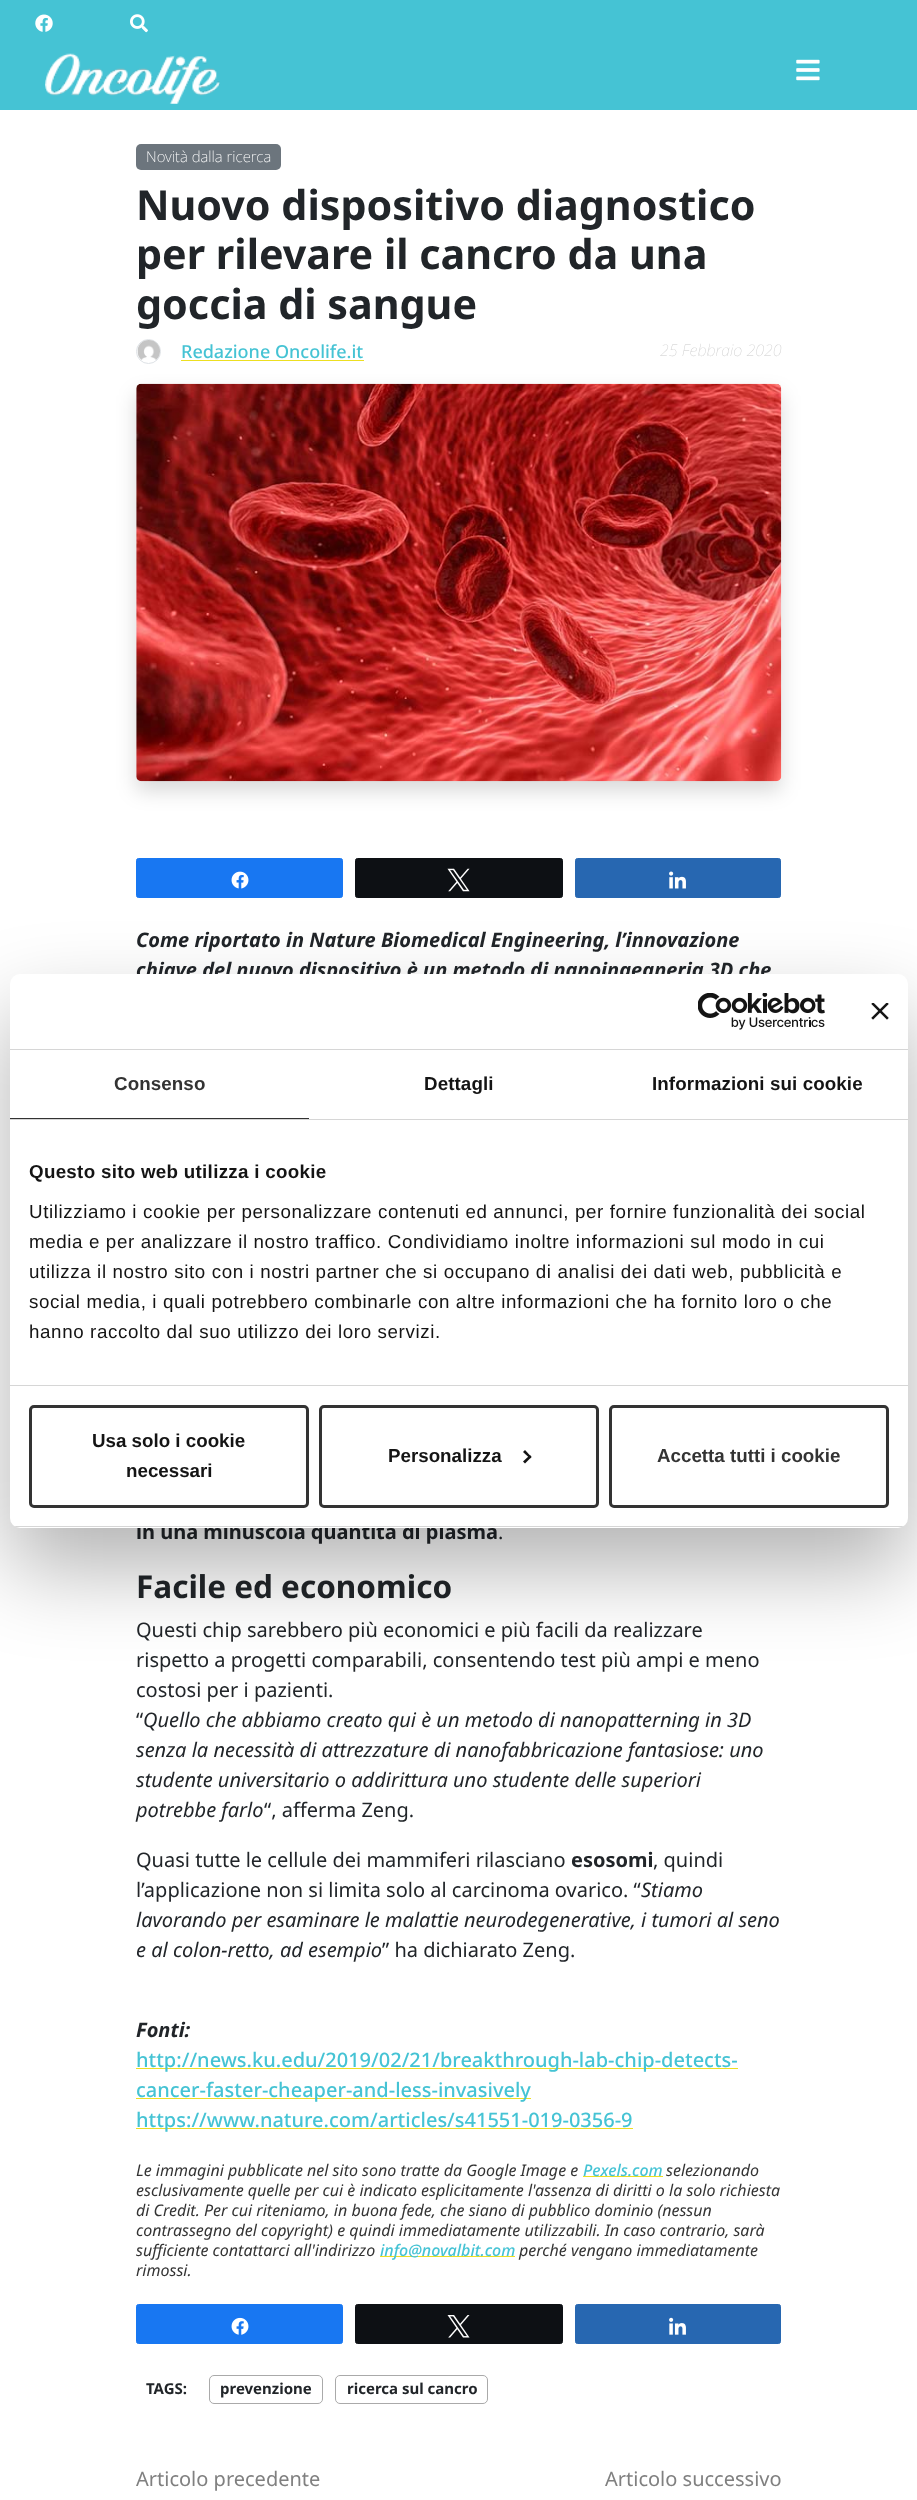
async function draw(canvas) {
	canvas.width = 917;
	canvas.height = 2500;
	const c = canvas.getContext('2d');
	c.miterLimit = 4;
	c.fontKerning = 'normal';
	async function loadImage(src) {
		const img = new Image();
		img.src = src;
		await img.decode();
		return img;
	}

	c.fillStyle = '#fff';
	c.fillRect(0, 0, 917, 2500);
	c.fillStyle = '#45c3d4';
	c.fillRect(0, 0, 917, 110);
	c.drawImage(await loadImage('img1.png'), 35, 14, 18, 18);
	c.drawImage(await loadImage('img2.png'), 130, 14, 18, 19);
	c.drawImage(await loadImage('img3.png'), 45, 53, 175, 51);
	c.drawImage(await loadImage('img4.png'), 796, 59, 24, 22);
	c.fillStyle = '#6c757d';
	c.beginPath();
	c.roundRect(136, 144, 145, 26, 5);
	c.fill();
	c.font = '200 15px Noto Sans';
	c.fillStyle = '#fff';
	c.fillText('Novità dalla ricerca', 146, 162);
	c.font = 'bold 41.25px Noto Sans';
	c.fillStyle = '#212529';
	for (const [text, x, y] of [
		['Nuovo dispositivo diagnostico', 136, 220],
		['per rilevare il cancro da una', 136, 269],
		['goccia di sangue', 136, 319],
	]) {
		c.fillText(text, x, y);
	}
	c.beginPath();
	c.arc(148.5, 351.5, 12, 0, 2 * Math.PI);
	c.strokeStyle = '#dee2e6';
	c.stroke();
	c.drawImage(await loadImage('img5.png'), 137, 340, 23, 20);
	c.font = '500 18px Noto Sans';
	c.fillStyle = '#45c3d4';
	c.fillText('Redazione Oncolife.it', 181, 358);
	c.fillStyle = '#eddf21';
	c.fillRect(181, 360, 183, 1);
	c.font = 'italic 100 16px Noto Sans';
	c.fillStyle = '#ccc';
	c.fillText('25 Febbraio 2020', 660, 356);
	c.fillStyle = '#00000026';
	c.filter = 'blur(10px)';
	c.beginPath();
	c.roundRect(136, 394, 645, 397, 5);
	c.fill();
	c.filter = 'none';
	c.drawImage(await loadImage('img6.png'), 136, 383, 646, 399);
	c.fillStyle = '#1877f2';
	c.beginPath();
	c.roundRect(136.5, 858.5, 206, 39, 2);
	c.fill();
	c.strokeStyle = '#1877f2';
	c.stroke();
	c.drawImage(await loadImage('img7.png'), 231, 871, 18, 18);
	c.fillStyle = '#0d1014';
	c.beginPath();
	c.roundRect(355.5, 858.5, 207, 39, 2);
	c.fill();
	c.strokeStyle = '#0d1014';
	c.stroke();
	c.drawImage(await loadImage('img8.png'), 447, 868, 23, 24);
	c.fillStyle = '#2767b1';
	c.beginPath();
	c.roundRect(575.5, 858.5, 205, 39, 2);
	c.fill();
	c.strokeStyle = '#2767b1';
	c.stroke();
	c.drawImage(await loadImage('img9.png'), 669, 871, 17, 18);
	c.font = 'italic bold 20px Noto Sans';
	c.fillStyle = '#212529';
	c.fillText('Come riportato in Nature Biomedical Engineering, l’innovazione', 136, 947);
	c.fillText('chiave del nuovo dispositivo è un metodo di nanoingegneria 3D che', 136, 977);
	c.font = 'bold 20px Noto Sans';
	c.fillText('in una minuscola quantità di plasma', 136, 1539);
	c.font = '20px Noto Sans';
	c.fillText('.', 498, 1539);
	c.font = 'bold 31.5px Noto Sans';
	c.fillText('Facile ed economico', 136, 1598);
	c.font = '20px Noto Sans';
	for (const [text, x, y] of [
		['Questi chip sarebbero più economici e più facili da realizzare', 136, 1637],
		['rispetto a progetti comparabili, consentendo test più ampi e meno', 136, 1667],
		['costosi per i pazienti.', 136, 1697],
		['“', 136, 1727],
	]) {
		c.fillText(text, x, y);
	}
	c.font = 'italic 20px Noto Sans';
	for (const [text, x, y] of [
		['Quello che abbiamo creato qui è un metodo di nanopatterning in 3D', 143, 1727],
		['senza la necessità di attrezzature di nanofabbricazione fantasiose: uno', 136, 1757],
		['studente universitario o addirittura uno studente delle superiori', 136, 1787],
		['potrebbe farlo', 136, 1817],
	]) {
		c.fillText(text, x, y);
	}
	c.font = '20px Noto Sans';
	c.fillText('“, afferma Zeng.', 264, 1817);
	c.fillText('Quasi tutte le cellule dei mammiferi rilasciano', 136, 1867);
	c.font = 'bold 20px Noto Sans';
	c.fillText('esosomi', 571, 1867);
	c.font = '20px Noto Sans';
	c.fillText(', quindi', 653, 1867);
	c.fillText('l’applicazione non si limita solo al carcinoma ovarico. “', 136, 1897);
	c.font = 'italic 20px Noto Sans';
	for (const [text, x, y] of [
		['Stiamo', 641, 1897],
		['lavorando per esaminare le malattie neurodegenerative, i tumori al seno', 136, 1927],
		['e al colon-retto, ad esempio', 136, 1957],
	]) {
		c.fillText(text, x, y);
	}
	c.font = '20px Noto Sans';
	c.fillText('” ha dichiarato Zeng.', 382, 1957);
	c.font = 'italic bold 20px Noto Sans';
	c.fillText('Fonti:', 136, 2037);
	c.fillStyle = '#eddf21';
	c.fillRect(136, 2068, 602, 1);
	c.font = '500 20px Noto Sans';
	c.fillStyle = '#45c3d4';
	c.fillText('http://news.ku.edu/2019/02/21/breakthrough-lab-chip-detects-', 136, 2067);
	c.fillStyle = '#eddf21';
	c.fillRect(136, 2098, 395, 1);
	c.fillStyle = '#45c3d4';
	c.fillText('cancer-faster-cheaper-and-less-invasively', 136, 2097);
	c.fillStyle = '#eddf21';
	c.fillRect(136, 2128, 497, 1);
	c.fillStyle = '#45c3d4';
	c.fillText('https://www.nature.com/articles/s41551-019-0356-9', 136, 2127);
	c.font = 'italic 16px Noto Sans';
	c.fillStyle = '#333';
	c.fillText('Le immagini pubblicate nel sito sono tratte da Google Image e', 136, 2176);
	c.fillStyle = '#eddf21';
	c.fillRect(583, 2176, 80, 1);
	c.font = 'italic 500 16px Noto Sans';
	c.fillStyle = '#45c3d4';
	c.fillText('Pexels.com', 583, 2176);
	c.font = 'italic 16px Noto Sans';
	c.fillStyle = '#333';
	for (const [text, x, y] of [
		['selezionando', 666, 2176],
		['esclusivamente quelle per cui è indicato esplicitamente l\'assenza di diritti o la solo richiesta', 136, 2196],
		['di Credit. Per cui riteniamo, in buona fede, che siano di pubblico dominio (nessun', 136, 2216],
		['contrassegno del copyright) e quindi immediatamente utilizzabili. In caso contrario, sarà', 136, 2236],
		['sufficiente contattarci all\'indirizzo', 136, 2256],
	]) {
		c.fillText(text, x, y);
	}
	c.fillStyle = '#eddf21';
	c.fillRect(380, 2256, 135, 1);
	c.font = 'italic 500 16px Noto Sans';
	c.fillStyle = '#45c3d4';
	c.fillText('info@novalbit.com', 380, 2256);
	c.font = 'italic 16px Noto Sans';
	c.fillStyle = '#333';
	c.fillText('perché vengano immediatamente', 519, 2256);
	c.fillText('rimossi.', 136, 2276);
	c.fillStyle = '#1877f2';
	c.beginPath();
	c.roundRect(136.5, 2304.5, 206, 39, 2);
	c.fill();
	c.strokeStyle = '#1877f2';
	c.stroke();
	c.drawImage(await loadImage('img10.png'), 231, 2317, 18, 18);
	c.fillStyle = '#0d1014';
	c.beginPath();
	c.roundRect(355.5, 2304.5, 207, 39, 2);
	c.fill();
	c.strokeStyle = '#0d1014';
	c.stroke();
	c.drawImage(await loadImage('img11.png'), 447, 2315, 23, 23);
	c.fillStyle = '#2767b1';
	c.beginPath();
	c.roundRect(575.5, 2304.5, 205, 39, 2);
	c.fill();
	c.strokeStyle = '#2767b1';
	c.stroke();
	c.drawImage(await loadImage('img12.png'), 669, 2317, 17, 18);
	c.font = 'bold 15px Noto Sans';
	c.fillStyle = '#212529';
	c.fillText('TAGS:', 146, 2394);
	c.beginPath();
	c.roundRect(209.5, 2375.5, 113, 28, 4.5);
	c.strokeStyle = '#aaa';
	c.stroke();
	c.fillText('prevenzione', 220, 2394);
	c.beginPath();
	c.roundRect(335.5, 2375.5, 152, 28, 4.5);
	c.stroke();
	c.fillText('ricerca sul cancro', 347, 2394);
	c.font = '20px Noto Sans';
	c.fillStyle = '#808080';
	c.fillText('Articolo precedente', 136, 2486);
	c.fillText('Articolo successivo', 605, 2486);
	c.fillStyle = '#0000004d';
	c.filter = 'blur(42.5px)';
	c.beginPath();
	c.roundRect(10, 1014, 898, 554, 10);
	c.fill();
	c.filter = 'none';
	c.fillStyle = '#fff';
	c.beginPath();
	c.roundRect(10, 974, 898, 554, 10);
	c.fill();
	c.fillStyle = '#d6d6d6';
	c.fillRect(10, 1049, 898, 1);
	c.drawImage(await loadImage('img13.png'), 698, 993, 127, 37);
	c.drawImage(await loadImage('img14.png'), 871, 1003, 18, 17);
	c.fillRect(10, 1119, 898, 1);
	c.fillStyle = '#333';
	c.fillRect(10, 1118, 299, 1);
	c.letterSpacing = '0.1px';
	c.font = 'bold 18.75px Liberation Sans';
	c.fillText('Consenso', 114, 1090);
	c.fillStyle = '#141414';
	c.fillText('Dettagli', 424, 1090);
	c.fillText('Informazioni sui cookie', 652, 1090);
	c.fillStyle = '#d6d6d6';
	c.fillRect(10, 1385, 898, 1);
	c.letterSpacing = '0.3px';
	c.fillStyle = '#141414';
	c.fillText('Questo sito web utilizza i cookie', 29, 1178);
	c.letterSpacing = '0.62px';
	c.font = '18.75px Liberation Sans';
	for (const [text, x, y] of [
		['Utilizziamo i cookie per personalizzare contenuti ed annunci, per fornire funzionalità dei social', 29, 1218],
		['media e per analizzare il nostro traffico. Condividiamo inoltre informazioni sul modo in cui', 29, 1248],
		['utilizza il nostro sito con i nostri partner che si occupano di analisi dei dati web, pubblicità e', 29, 1278],
		['social media, i quali potrebbero combinarle con altre informazioni che ha fornito loro o che', 29, 1308],
		['hanno raccolto dal suo utilizzo dei loro servizi.', 29, 1338],
	]) {
		c.fillText(text, x, y);
	}
	c.save();
	c.beginPath();
	c.roundRect(10, 974, 898, 554, 10);
	c.clip();
	c.fillStyle = '#d6d6d6';
	c.fillRect(10, 1526, 898, 1);
	c.restore();
	c.beginPath();
	c.roundRect(30.5, 1406.5, 277, 100, 3.5);
	c.strokeStyle = '#333';
	c.lineWidth = 3;
	c.stroke();
	c.letterSpacing = '0px';
	c.font = 'bold 18.75px Liberation Sans';
	c.fillText('Usa solo i cookie', 92, 1447);
	c.fillText('necessari', 126, 1477);
	c.beginPath();
	c.roundRect(320.5, 1406.5, 277, 100, 3.5);
	c.stroke();
	c.fillText('Personalizza', 388, 1462);
	c.beginPath();
	c.moveTo(525, 1450);
	c.lineTo(531.5, 1457);
	c.lineTo(530, 1458.5);
	c.lineTo(523, 1452);
	c.closePath();
	c.fill();
	c.beginPath();
	c.moveTo(530, 1455);
	c.lineTo(531.5, 1457);
	c.lineTo(525, 1463.5);
	c.lineTo(523, 1461.5);
	c.closePath();
	c.fill();
	c.beginPath();
	c.roundRect(610.5, 1406.5, 277, 100, 3.5);
	c.stroke();
	c.fillStyle = '#333';
	c.fillText('Accetta tutti i cookie', 657, 1462);
}

draw(document.querySelector('canvas'));
